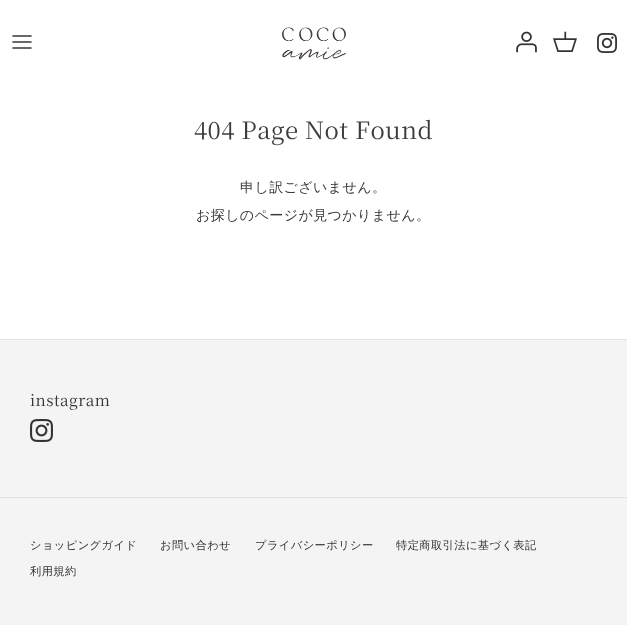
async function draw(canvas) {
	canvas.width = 627;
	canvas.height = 625;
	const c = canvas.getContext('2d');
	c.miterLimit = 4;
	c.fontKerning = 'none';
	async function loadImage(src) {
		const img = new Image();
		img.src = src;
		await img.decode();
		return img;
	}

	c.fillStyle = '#fff';
	c.fillRect(0, 0, 627, 625);
	c.drawImage(await loadImage('img1.png'), 12, 35, 20, 14);
	c.drawImage(await loadImage('img2.png'), 282, 27, 64, 33);
	c.drawImage(await loadImage('img3.png'), 516, 31, 21, 22);
	c.drawImage(await loadImage('img4.png'), 553, 31, 24, 21);
	c.drawImage(await loadImage('img5.png'), 597, 33, 20, 20);
	c.letterSpacing = '0.4px';
	c.font = '24px Noto Serif JP';
	c.fillStyle = '#3c3c3b';
	c.fillText('404 Page Not Found', 194, 139);
	c.font = '500 14px WenQuanYi Zen Hei';
	c.fillText('申し訳ございません。', 240, 192);
	c.fillText('お探しのページが見つかりません。', 196, 220);
	c.fillStyle = '#f4f4f4';
	c.fillRect(0, 340, 627, 285);
	c.fillStyle = '#e2e2e2';
	c.fillRect(0, 339, 627, 1);
	c.font = '15.5px Noto Serif JP';
	c.fillStyle = '#333';
	c.fillText('instagram', 30, 406);
	c.drawImage(await loadImage('img6.png'), 30, 419, 23, 23);
	c.fillStyle = '#e2e2e2';
	c.fillRect(0, 497, 627, 1);
	c.font = '500 11.25px WenQuanYi Zen Hei';
	c.fillStyle = '#333';
	for (const [text, x, y] of [
		['ショッピングガイド', 30, 549],
		['お問い合わせ', 160, 549],
		['プライバシーポリシー', 255, 549],
		['特定商取引法に基づく表記', 396, 549],
		['利用規約', 30, 575],
	]) {
		c.fillText(text, x, y);
	}
}

draw(document.querySelector('canvas'));
